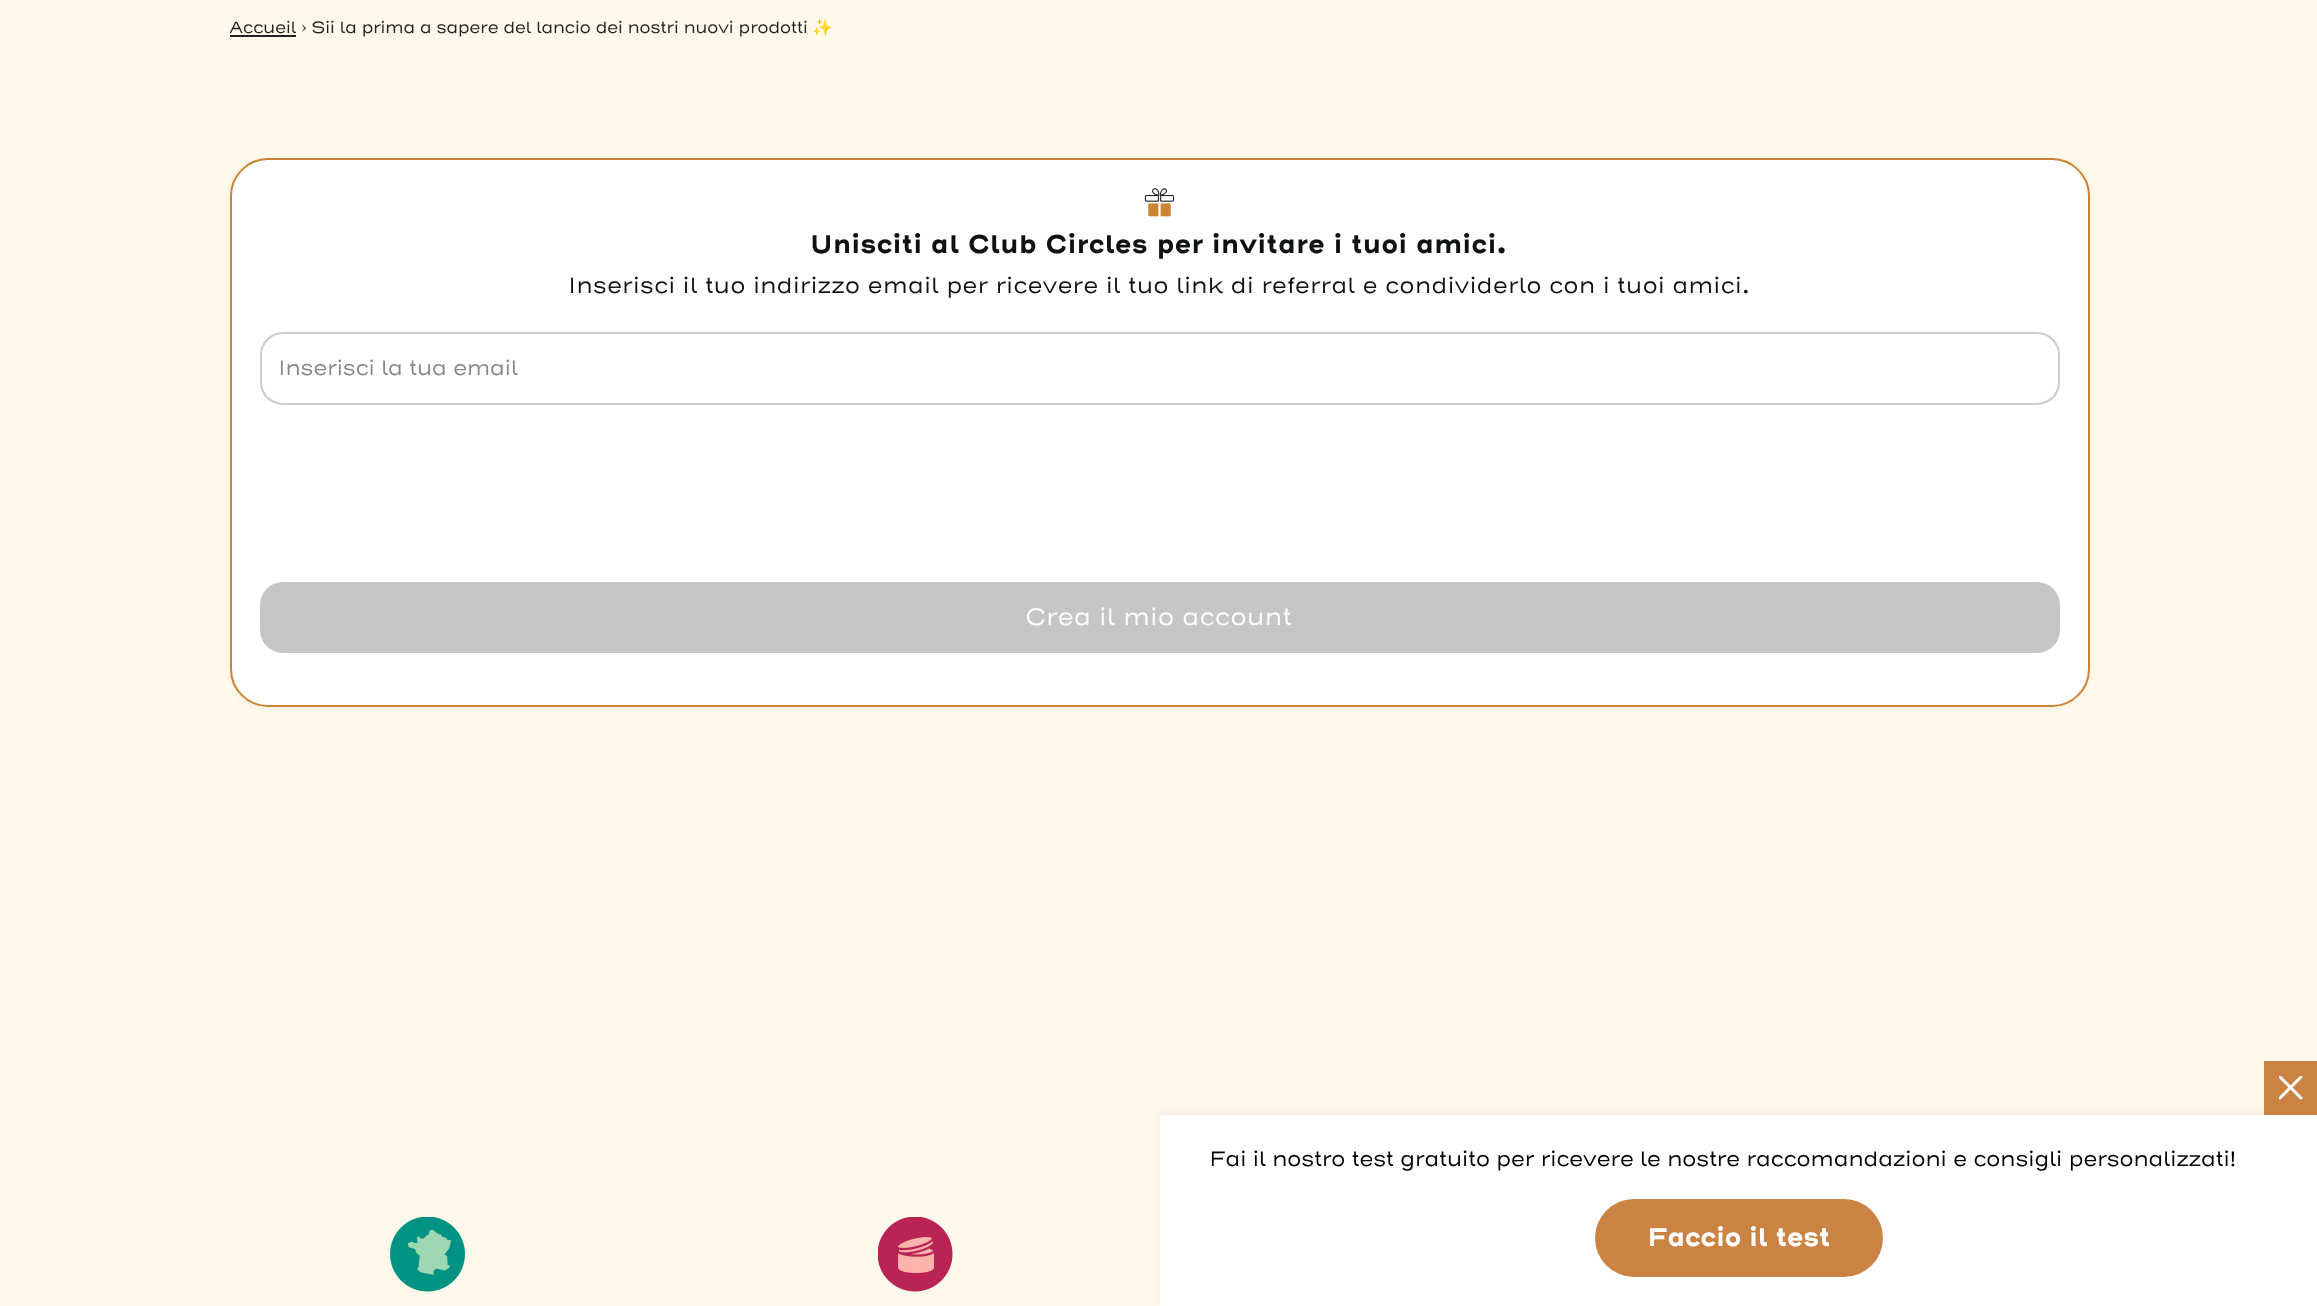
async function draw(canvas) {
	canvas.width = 2317;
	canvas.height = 1306;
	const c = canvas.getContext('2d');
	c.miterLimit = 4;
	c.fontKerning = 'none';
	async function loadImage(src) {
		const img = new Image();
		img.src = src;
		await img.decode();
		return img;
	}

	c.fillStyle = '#fff9eb';
	c.fillRect(0, 0, 2317, 1306);
	c.fillStyle = '#222';
	c.fillRect(230, 35, 66, 2);
	c.letterSpacing = '-0.5px';
	c.font = '16.6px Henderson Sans';
	c.fillText('Accueil › Sii la prima a sapere del lancio dei nostri nuovi prodotti', 229, 33);
	c.font = '16.6px Noto Color Emoji';
	c.fillText('✨', 812, 33);
	c.fillStyle = '#0000000d';
	c.filter = 'blur(4px)';
	c.beginPath();
	c.roundRect(231, 161, 1857, 546, 36);
	c.fill();
	c.filter = 'none';
	c.fillStyle = '#fff';
	c.beginPath();
	c.roundRect(231, 159, 1858, 547, 37);
	c.fill();
	c.strokeStyle = '#ca8432';
	c.lineWidth = 2;
	c.stroke();
	c.drawImage(await loadImage('img1.png'), 1144, 188, 31, 29);
	c.letterSpacing = '0px';
	c.font = 'bold 25.5px Henderson Sans';
	c.fillStyle = '#0e1311';
	c.fillText('Unisciti al Club Circles per invitare i tuoi amici.', 810, 253);
	c.font = '22.3px Henderson Sans';
	c.fillText('Inserisci il tuo indirizzo email per ricevere il tuo link di referral e condividerlo con i tuoi amici.', 568, 293);
	c.beginPath();
	c.roundRect(261, 333, 1798, 71, 22);
	c.strokeStyle = '#ccc';
	c.stroke();
	c.letterSpacing = '-0.5px';
	c.font = '21px Henderson Sans';
	c.fillStyle = '#878988';
	c.fillText('Inserisci la tua email', 278, 375);
	c.fillStyle = '#c6c6c6';
	c.beginPath();
	c.roundRect(261, 583, 1798, 69, 22);
	c.fill();
	c.strokeStyle = '#c6c6c6';
	c.stroke();
	c.letterSpacing = '0px';
	c.font = '24px Henderson Sans';
	c.fillStyle = '#fff';
	c.fillText('Crea il mio account', 1025, 625);
	c.fillStyle = '#0000000d';
	c.filter = 'blur(6px)';
	c.beginPath();
	c.rect(1160, 1112, 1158, 192);
	c.fill();
	c.filter = 'none';
	c.fillStyle = '#fff';
	c.fillRect(1160, 1115, 1157, 191);
	c.fillStyle = '#ca8342';
	c.fillRect(2264, 1061, 53, 54);
	c.save();
	c.beginPath();
	c.rect(2279, 1076, 24, 24);
	c.clip();
	c.beginPath();
	c.moveTo(2301, 1077);
	c.lineTo(2280, 1098);
	c.moveTo(2280, 1077);
	c.lineTo(2301, 1098);
	c.strokeStyle = '#fff';
	c.lineWidth = 3;
	c.lineCap = 'round';
	c.stroke();
	c.restore();
	c.letterSpacing = '-0.5px';
	c.font = '21px Henderson Sans';
	c.fillStyle = '#000';
	c.fillText('Fai il nostro test gratuito per ricevere le nostre raccomandazioni e consigli personalizzati!', 1209, 1166);
	c.fillStyle = '#ca8342';
	c.beginPath();
	c.roundRect(1595, 1199, 288, 78, 39);
	c.fill();
	c.font = 'bold 25.5px Henderson Sans';
	c.fillStyle = '#fff';
	c.fillText('Faccio il test', 1647, 1246);
	c.drawImage(await loadImage('img2.png'), 390, 1217, 75, 75);
	c.drawImage(await loadImage('img3.png'), 878, 1217, 75, 75);
}

draw(document.querySelector('canvas'));
